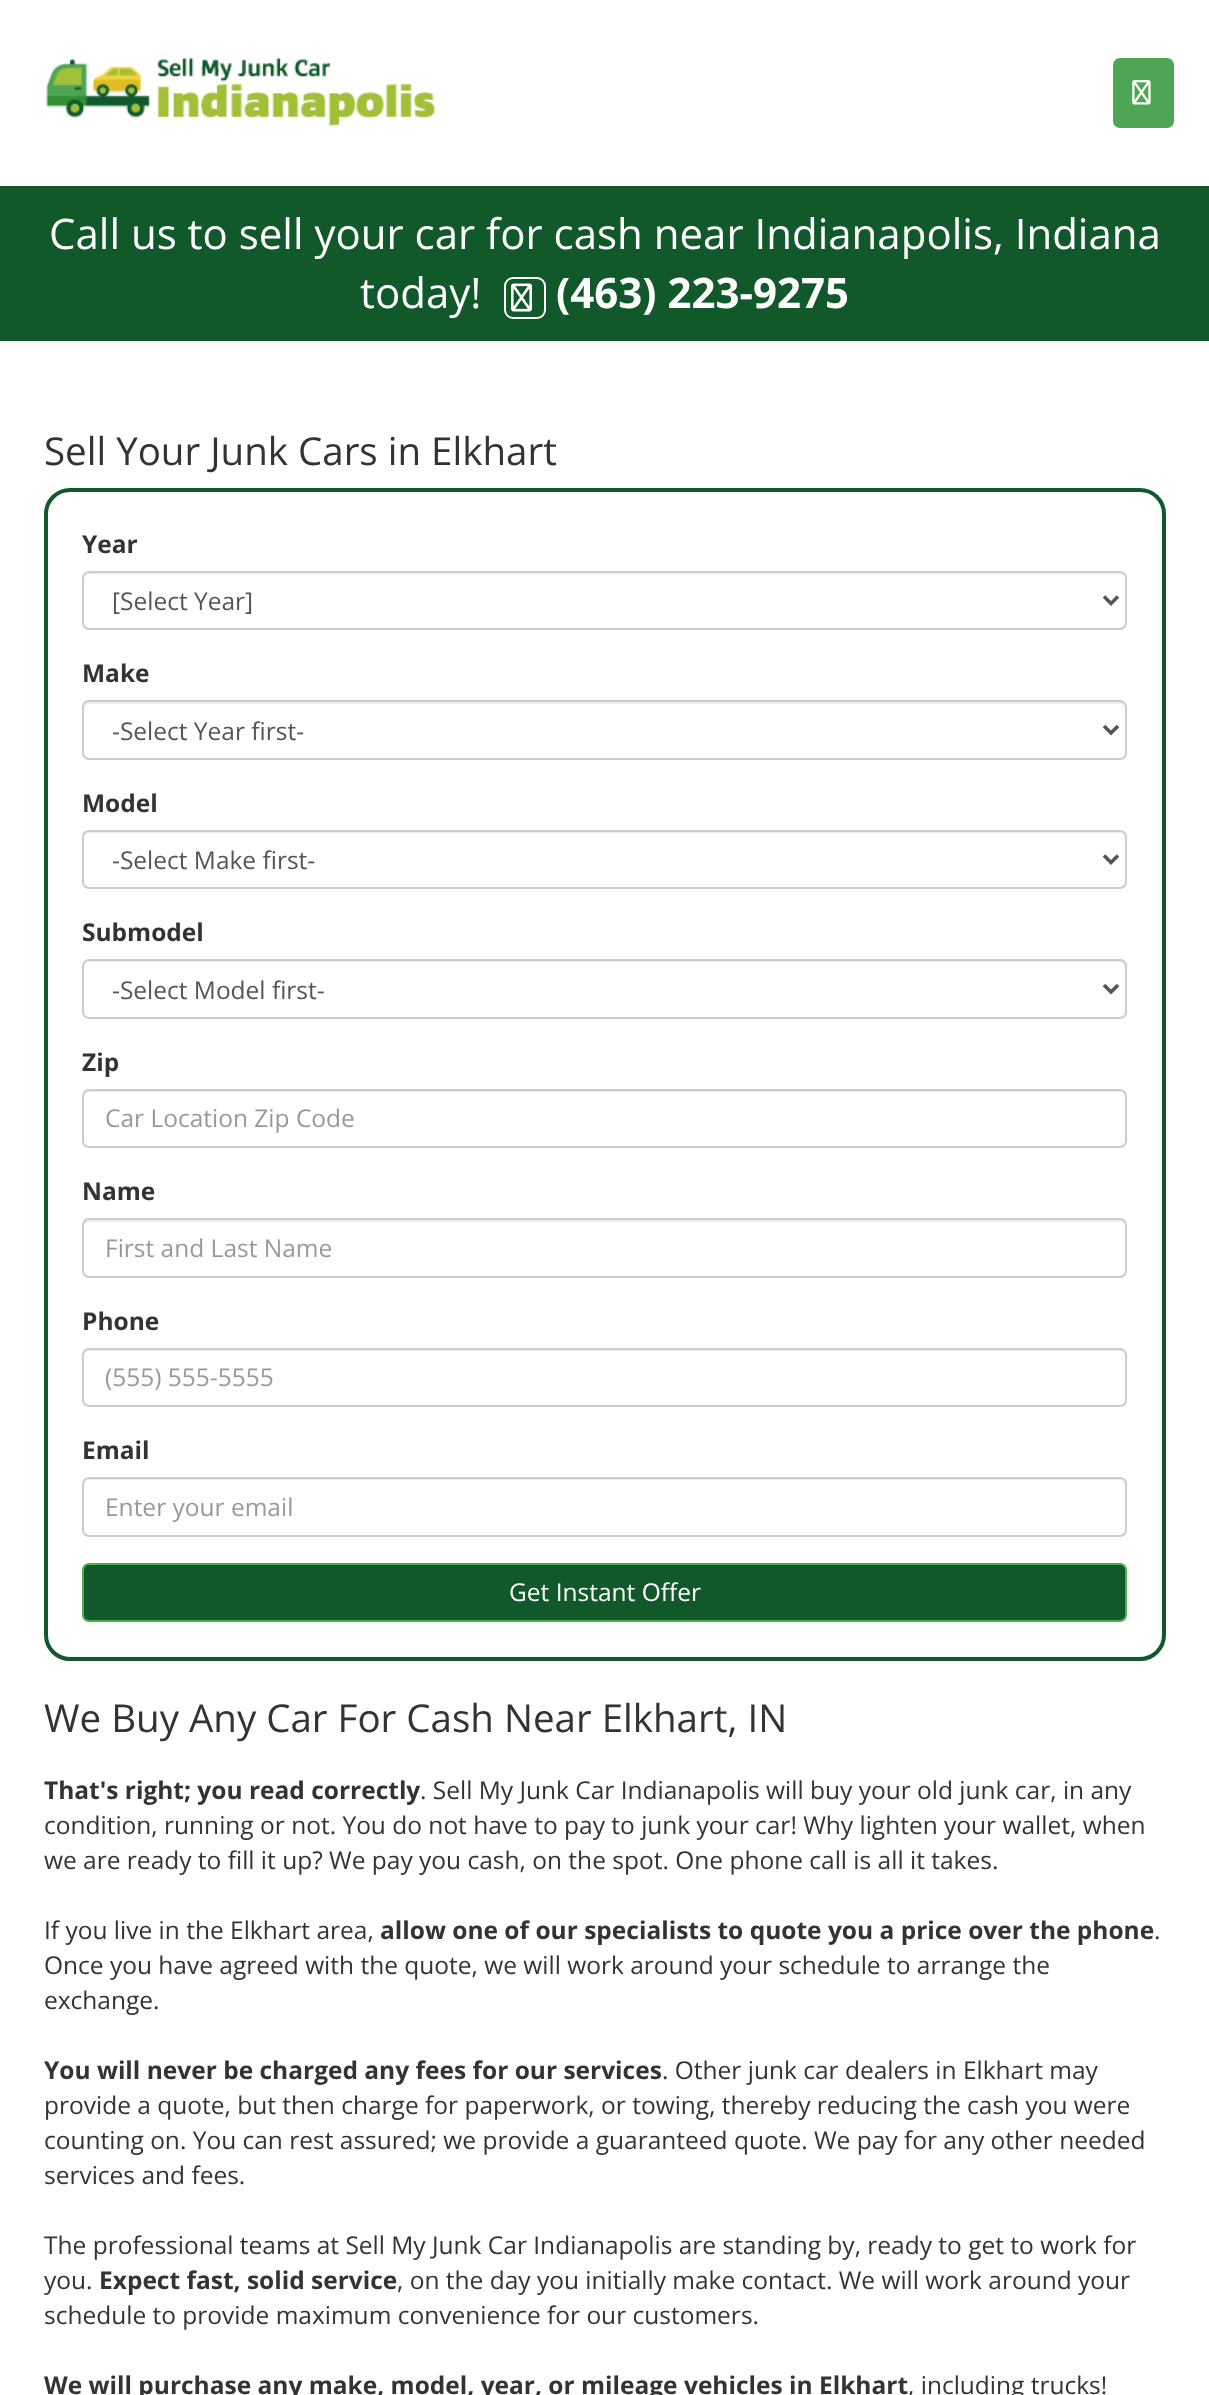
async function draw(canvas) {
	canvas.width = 1209;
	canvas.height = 2395;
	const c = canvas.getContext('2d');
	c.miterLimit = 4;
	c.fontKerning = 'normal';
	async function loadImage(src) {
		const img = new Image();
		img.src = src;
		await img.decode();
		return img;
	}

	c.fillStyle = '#fff';
	c.fillRect(0, 0, 1209, 2395);
	c.drawImage(await loadImage('img1.png'), 46, 57, 390, 70);
	c.fillStyle = '#4ea654';
	c.beginPath();
	c.roundRect(1113, 58, 61, 70, 7);
	c.fill();
	c.drawImage(await loadImage('img2.png'), 1132, 80, 19, 25);
	c.fillStyle = '#11592a';
	c.fillRect(0, 186, 1209, 155);
	c.font = '42px Open Sans';
	c.fillStyle = '#fff';
	c.fillText('Call us to sell your car for cash near Indianapolis, Indiana', 49, 249);
	c.fillText('today! ‌', 360, 308);
	c.beginPath();
	c.roundRect(505, 278, 40, 40, 8);
	c.strokeStyle = '#fff';
	c.lineWidth = 2;
	c.stroke();
	c.drawImage(await loadImage('img3.png'), 511, 283, 21, 29);
	c.font = 'bold 42px Open Sans';
	c.fillText('(463) 223-9275', 556, 308);
	c.font = '38.5px Open Sans';
	c.fillStyle = '#333';
	c.fillText('Sell Your Junk Cars in Elkhart', 44, 465);
	c.beginPath();
	c.roundRect(46, 490, 1118, 1169, 24);
	c.strokeStyle = '#11592a';
	c.lineWidth = 4;
	c.stroke();
	c.font = 'bold 24.5px Open Sans';
	c.fillText('Year', 82, 553);
	c.fillStyle = '#ececec';
	c.beginPath();
	c.moveTo(89, 574);
	c.lineTo(1120, 574);
	c.bezierCurveTo(1123, 574, 1125, 576, 1125, 579);
	c.lineTo(1125, 577);
	c.bezierCurveTo(1125, 574, 1123, 572, 1120, 572);
	c.lineTo(89, 572);
	c.bezierCurveTo(86, 572, 84, 574, 84, 577);
	c.lineTo(84, 579);
	c.bezierCurveTo(84, 576, 86, 574, 89, 574);
	c.closePath();
	c.fill();
	c.beginPath();
	c.roundRect(83, 572, 1043, 57, 6);
	c.strokeStyle = '#ccc';
	c.lineWidth = 2;
	c.stroke();
	c.beginPath();
	c.moveTo(1104, 596.5);
	c.lineTo(1111, 603.5);
	c.lineTo(1118, 596.5);
	c.strokeStyle = '#555';
	c.lineWidth = 3.5;
	c.stroke();
	c.font = '24.5px Open Sans';
	c.fillStyle = '#555';
	c.fillText('[Select Year]', 112, 610);
	c.font = 'bold 24.5px Open Sans';
	c.fillStyle = '#333';
	c.fillText('Make', 82, 682);
	c.fillStyle = '#ececec';
	c.beginPath();
	c.moveTo(89, 704);
	c.lineTo(1120, 704);
	c.bezierCurveTo(1123, 704, 1125, 706, 1125, 709);
	c.lineTo(1125, 707);
	c.bezierCurveTo(1125, 704, 1123, 702, 1120, 702);
	c.lineTo(89, 702);
	c.bezierCurveTo(86, 702, 84, 704, 84, 707);
	c.lineTo(84, 709);
	c.bezierCurveTo(84, 706, 86, 704, 89, 704);
	c.closePath();
	c.fill();
	c.beginPath();
	c.roundRect(83, 701, 1043, 58, 6);
	c.strokeStyle = '#ccc';
	c.lineWidth = 2;
	c.stroke();
	c.beginPath();
	c.moveTo(1104, 726);
	c.lineTo(1111, 733);
	c.lineTo(1118, 726);
	c.strokeStyle = '#555';
	c.lineWidth = 3.5;
	c.stroke();
	c.font = '24.5px Open Sans';
	c.fillStyle = '#555';
	c.fillText('-Select Year first-', 112, 740);
	c.font = 'bold 24.5px Open Sans';
	c.fillStyle = '#333';
	c.fillText('Model', 82, 812);
	c.fillStyle = '#ececec';
	c.beginPath();
	c.moveTo(89, 833);
	c.lineTo(1120, 833);
	c.bezierCurveTo(1123, 833, 1125, 835, 1125, 838);
	c.lineTo(1125, 836);
	c.bezierCurveTo(1125, 833, 1123, 831, 1120, 831);
	c.lineTo(89, 831);
	c.bezierCurveTo(86, 831, 84, 833, 84, 836);
	c.lineTo(84, 838);
	c.bezierCurveTo(84, 835, 86, 833, 89, 833);
	c.closePath();
	c.fill();
	c.beginPath();
	c.roundRect(83, 831, 1043, 57, 6);
	c.strokeStyle = '#ccc';
	c.lineWidth = 2;
	c.stroke();
	c.beginPath();
	c.moveTo(1104, 855.5);
	c.lineTo(1111, 862.5);
	c.lineTo(1118, 855.5);
	c.strokeStyle = '#555';
	c.lineWidth = 3.5;
	c.stroke();
	c.font = '24.5px Open Sans';
	c.fillStyle = '#555';
	c.fillText('-Select Make first-', 112, 869);
	c.font = 'bold 24.5px Open Sans';
	c.fillStyle = '#333';
	c.fillText('Submodel', 82, 941);
	c.fillStyle = '#ececec';
	c.beginPath();
	c.moveTo(89, 962);
	c.lineTo(1120, 962);
	c.bezierCurveTo(1123, 962, 1125, 965, 1125, 968);
	c.lineTo(1125, 966);
	c.bezierCurveTo(1125, 963, 1123, 961, 1120, 961);
	c.lineTo(89, 961);
	c.bezierCurveTo(86, 961, 84, 963, 84, 966);
	c.lineTo(84, 968);
	c.bezierCurveTo(84, 965, 86, 962, 89, 962);
	c.closePath();
	c.fill();
	c.beginPath();
	c.roundRect(83, 960, 1043, 58, 6);
	c.strokeStyle = '#ccc';
	c.lineWidth = 2;
	c.stroke();
	c.beginPath();
	c.moveTo(1104, 985);
	c.lineTo(1111, 992);
	c.lineTo(1118, 985);
	c.strokeStyle = '#555';
	c.lineWidth = 3.5;
	c.stroke();
	c.font = '24.5px Open Sans';
	c.fillStyle = '#555';
	c.fillText('-Select Model first-', 112, 999);
	c.font = 'bold 24.5px Open Sans';
	c.fillStyle = '#333';
	c.fillText('Zip', 82, 1071);
	c.fillStyle = '#ececec';
	c.beginPath();
	c.moveTo(89, 1092);
	c.lineTo(1120, 1092);
	c.bezierCurveTo(1123, 1092, 1125, 1094, 1125, 1097);
	c.lineTo(1125, 1095);
	c.bezierCurveTo(1125, 1092, 1123, 1090, 1120, 1090);
	c.lineTo(89, 1090);
	c.bezierCurveTo(86, 1090, 84, 1092, 84, 1095);
	c.lineTo(84, 1097);
	c.bezierCurveTo(84, 1094, 86, 1092, 89, 1092);
	c.closePath();
	c.fill();
	c.beginPath();
	c.roundRect(83, 1090, 1043, 57, 6);
	c.strokeStyle = '#ccc';
	c.lineWidth = 2;
	c.stroke();
	c.font = '24.5px Open Sans';
	c.fillStyle = '#999';
	c.fillText('Car Location Zip Code', 105, 1127);
	c.font = 'bold 24.5px Open Sans';
	c.fillStyle = '#333';
	c.fillText('Name', 82, 1200);
	c.fillStyle = '#ececec';
	c.beginPath();
	c.moveTo(89, 1222);
	c.lineTo(1120, 1222);
	c.bezierCurveTo(1123, 1222, 1125, 1224, 1125, 1227);
	c.lineTo(1125, 1225);
	c.bezierCurveTo(1125, 1222, 1123, 1220, 1120, 1220);
	c.lineTo(89, 1220);
	c.bezierCurveTo(86, 1220, 84, 1222, 84, 1225);
	c.lineTo(84, 1227);
	c.bezierCurveTo(84, 1224, 86, 1222, 89, 1222);
	c.closePath();
	c.fill();
	c.beginPath();
	c.roundRect(83, 1219, 1043, 58, 6);
	c.stroke();
	c.font = '24.5px Open Sans';
	c.fillStyle = '#999';
	c.fillText('First and Last Name', 105, 1257);
	c.font = 'bold 24.5px Open Sans';
	c.fillStyle = '#333';
	c.fillText('Phone', 82, 1330);
	c.fillStyle = '#ececec';
	c.beginPath();
	c.moveTo(89, 1351);
	c.lineTo(1120, 1351);
	c.bezierCurveTo(1123, 1351, 1125, 1353, 1125, 1356);
	c.lineTo(1125, 1354);
	c.bezierCurveTo(1125, 1351, 1123, 1349, 1120, 1349);
	c.lineTo(89, 1349);
	c.bezierCurveTo(86, 1349, 84, 1351, 84, 1354);
	c.lineTo(84, 1356);
	c.bezierCurveTo(84, 1353, 86, 1351, 89, 1351);
	c.closePath();
	c.fill();
	c.beginPath();
	c.roundRect(83, 1349, 1043, 57, 6);
	c.stroke();
	c.font = '24.5px Open Sans';
	c.fillStyle = '#999';
	c.fillText('(555) 555-5555', 105, 1386);
	c.font = 'bold 24.5px Open Sans';
	c.fillStyle = '#333';
	c.fillText('Email', 82, 1459);
	c.fillStyle = '#ececec';
	c.beginPath();
	c.moveTo(89, 1480);
	c.lineTo(1120, 1480);
	c.bezierCurveTo(1123, 1480, 1125, 1483, 1125, 1486);
	c.lineTo(1125, 1484);
	c.bezierCurveTo(1125, 1481, 1123, 1479, 1120, 1479);
	c.lineTo(89, 1479);
	c.bezierCurveTo(86, 1479, 84, 1481, 84, 1484);
	c.lineTo(84, 1486);
	c.bezierCurveTo(84, 1483, 86, 1480, 89, 1480);
	c.closePath();
	c.fill();
	c.beginPath();
	c.roundRect(83, 1478, 1043, 58, 6);
	c.stroke();
	c.font = '24.5px Open Sans';
	c.fillStyle = '#999';
	c.fillText('Enter your email', 105, 1516);
	c.fillStyle = '#11592a';
	c.beginPath();
	c.roundRect(83, 1564, 1043, 57, 6);
	c.fill();
	c.strokeStyle = '#4cae4c';
	c.stroke();
	c.fillStyle = '#fff';
	c.fillText('Get Instant Offer', 509, 1601);
	c.font = '38.5px Open Sans';
	c.fillStyle = '#333';
	c.fillText('We Buy Any Car For Cash Near Elkhart, IN', 44, 1732);
	c.font = 'bold 24.5px Open Sans';
	c.fillText('That\'s right; you read correctly', 44, 1799);
	c.font = '24.5px Open Sans';
	for (const [text, x, y] of [
		['. Sell My Junk Car Indianapolis will buy your old junk car, in any', 420, 1799],
		['condition, running or not. You do not have to pay to junk your car! Why lighten your wallet, when', 44, 1834],
		['we are ready to fill it up? We pay you cash, on the spot. One phone call is all it takes.', 44, 1869],
		['‌If you live in the Elkhart area,', 44, 1939],
	]) {
		c.fillText(text, x, y);
	}
	c.font = 'bold 24.5px Open Sans';
	c.fillText('allow one of our specialists to quote you a price over the phone', 380, 1939);
	c.font = '24.5px Open Sans';
	for (const [text, x, y] of [
		['.', 1154, 1939],
		['Once you have agreed with the quote, we will work around your schedule to arrange the', 44, 1974],
		['exchange.', 44, 2009],
	]) {
		c.fillText(text, x, y);
	}
	c.font = 'bold 24.5px Open Sans';
	c.fillText('You will never be charged any fees for our services', 44, 2079);
	c.font = '24.5px Open Sans';
	for (const [text, x, y] of [
		['. Other junk car dealers in Elkhart may', 662, 2079],
		['provide a quote, but then charge for paperwork, or towing, thereby reducing the cash you were', 44, 2114],
		['counting on. You can rest assured; we provide a guaranteed quote. We pay for any other needed', 44, 2149],
		['services and fees.', 44, 2184],
		['‌The professional teams at Sell My Junk Car Indianapolis are standing by, ready to get to work for', 44, 2254],
		['you.', 44, 2289],
	]) {
		c.fillText(text, x, y);
	}
	c.font = 'bold 24.5px Open Sans';
	c.fillText('Expect fast, solid service', 99, 2289);
	c.font = '24.5px Open Sans';
	c.fillText(', on the day you initially make contact. We will work around your', 397, 2289);
	c.fillText('schedule to provide maximum convenience for our customers.', 44, 2324);
	c.font = 'bold 24.5px Open Sans';
	c.fillText('‌We will purchase any make, model, year, or mileage vehicles in Elkhart', 44, 2394);
	c.font = '24.5px Open Sans';
	c.fillText(', including trucks!', 908, 2394);
}

draw(document.querySelector('canvas'));
